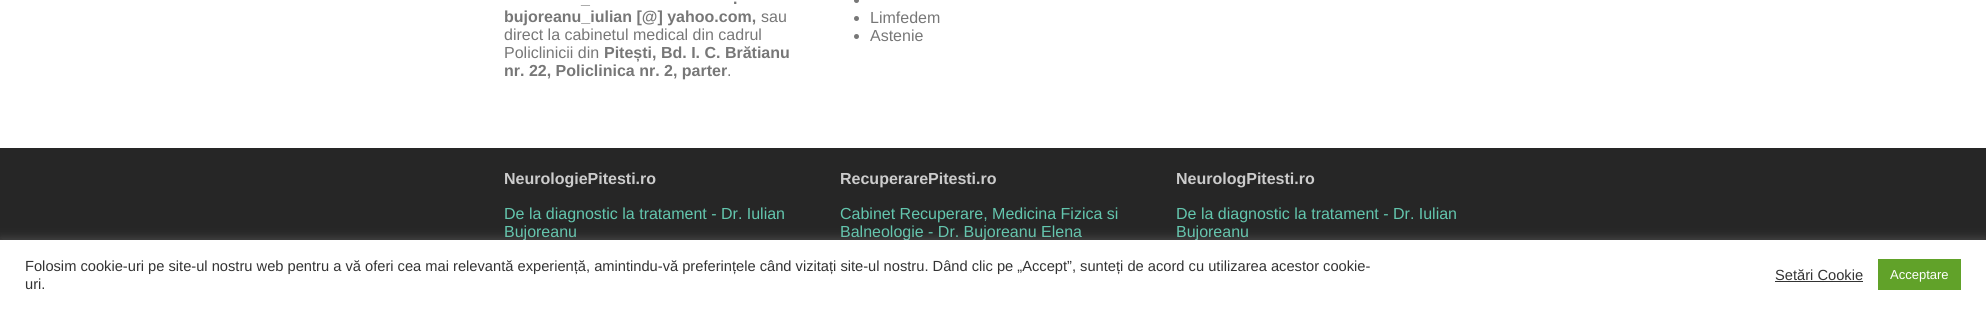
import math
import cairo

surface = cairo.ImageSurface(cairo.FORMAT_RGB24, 1986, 309)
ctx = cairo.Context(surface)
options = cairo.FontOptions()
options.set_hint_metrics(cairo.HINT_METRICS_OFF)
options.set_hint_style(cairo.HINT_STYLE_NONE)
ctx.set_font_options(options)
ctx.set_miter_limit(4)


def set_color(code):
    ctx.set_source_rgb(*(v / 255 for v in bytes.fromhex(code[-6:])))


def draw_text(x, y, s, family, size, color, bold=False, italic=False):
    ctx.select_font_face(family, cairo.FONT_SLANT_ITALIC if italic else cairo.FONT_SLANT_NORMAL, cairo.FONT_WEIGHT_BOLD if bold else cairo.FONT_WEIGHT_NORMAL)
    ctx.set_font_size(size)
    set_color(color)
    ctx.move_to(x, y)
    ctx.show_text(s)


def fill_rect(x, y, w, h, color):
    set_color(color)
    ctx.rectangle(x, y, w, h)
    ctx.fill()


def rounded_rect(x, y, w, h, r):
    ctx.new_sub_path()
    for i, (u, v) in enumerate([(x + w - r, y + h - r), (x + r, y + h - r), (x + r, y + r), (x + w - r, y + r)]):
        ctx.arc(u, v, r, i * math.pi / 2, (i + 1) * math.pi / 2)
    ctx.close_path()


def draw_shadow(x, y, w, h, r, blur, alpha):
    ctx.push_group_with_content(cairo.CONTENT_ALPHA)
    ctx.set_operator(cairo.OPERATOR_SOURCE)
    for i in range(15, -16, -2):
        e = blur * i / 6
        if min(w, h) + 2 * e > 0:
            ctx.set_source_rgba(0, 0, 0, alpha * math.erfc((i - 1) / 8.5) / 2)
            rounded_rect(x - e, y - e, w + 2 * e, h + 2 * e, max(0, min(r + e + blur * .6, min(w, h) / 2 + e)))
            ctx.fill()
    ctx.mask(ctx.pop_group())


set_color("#ffffff")
ctx.paint()
draw_text(733, 4, ".", "Liberation Sans", 16, "#777777", bold=True)
draw_text(581, 4, "_", "Liberation Sans", 16, "#777777", bold=True)
draw_text(504, 22, "bujoreanu_iulian [@] yahoo.com,", "Liberation Sans", 16, "#777777", bold=True)
draw_text(761, 22, "sau", "Liberation Sans", 16, "#777777")
draw_text(504, 40, "direct la cabinetul medical din cadrul", "Liberation Sans", 16, "#777777")
draw_text(504, 58, "Policlinicii din", "Liberation Sans", 16, "#777777")
draw_text(604, 58, "Pitești, Bd. I. C. Brătianu", "Liberation Sans", 16, "#777777", bold=True)
draw_text(504, 76, "nr. 22, Policlinica nr. 2, parter", "Liberation Sans", 16, "#777777", bold=True)
draw_text(727, 76, ".", "Liberation Sans", 16, "#777777")
ctx.new_path()
ctx.arc(856.5, 0.5, 2.5, 0, 2 * math.pi)
ctx.fill()
ctx.arc(856.5, 18.5, 2.5, 0, 2 * math.pi)
ctx.fill()
draw_text(870, 23, "Limfedem", "Liberation Sans", 16, "#777777")
ctx.new_path()
ctx.arc(856.5, 36.5, 2.5, 0, 2 * math.pi)
ctx.fill()
draw_text(870, 41, "Astenie", "Liberation Sans", 16, "#777777")
fill_rect(0, 148, 1986, 92, "#262626")
draw_text(504, 184, "NeurologiePitesti.ro", "Liberation Sans", 16, "#cccccc", bold=True)
draw_text(504, 219, "De la diagnostic la tratament - Dr. Iulian", "Liberation Sans", 16, "#63c6ae")
draw_text(504, 237, "Bujoreanu", "Liberation Sans", 16, "#63c6ae")
draw_text(840, 184, "RecuperarePitesti.ro", "Liberation Sans", 16, "#cccccc", bold=True)
draw_text(840, 219, "Cabinet Recuperare, Medicina Fizica si", "Liberation Sans", 16, "#63c6ae")
draw_text(840, 237, "Balneologie - Dr. Bujoreanu Elena", "Liberation Sans", 16, "#63c6ae")
draw_text(1176, 184, "NeurologPitesti.ro", "Liberation Sans", 16, "#cccccc", bold=True)
draw_text(1176, 219, "De la diagnostic la tratament - Dr. Iulian", "Liberation Sans", 16, "#63c6ae")
draw_text(1176, 237, "Bujoreanu", "Liberation Sans", 16, "#63c6ae")
set_color("#acabab")
draw_shadow(0, 239, 1986, 69, 0, 5, 0.3)
fill_rect(0, 240, 1986, 69, "#ffffff")
draw_text(25, 271, "Folosim cookie-uri pe site-ul nostru web pentru a vă oferi cea mai relevantă experiență, amintindu-vă preferințele când vizitați site-ul nostru. Dând clic pe „Accept”, sunteți de acord cu utilizarea acestor cookie-", "Liberation Sans", 14.67, "#333333")
draw_text(25, 289, "uri.", "Liberation Sans", 14.67, "#333333")
draw_text(1775, 280, "Setări Cookie", "Liberation Sans", 14.67, "#333333")
fill_rect(1775, 281, 88, 1, "#333333")
fill_rect(1878, 259, 83, 31, "#61a229")
draw_text(1890, 279, "Acceptare", "Liberation Sans", 13, "#ffffff")
surface.write_to_png("output.png")
